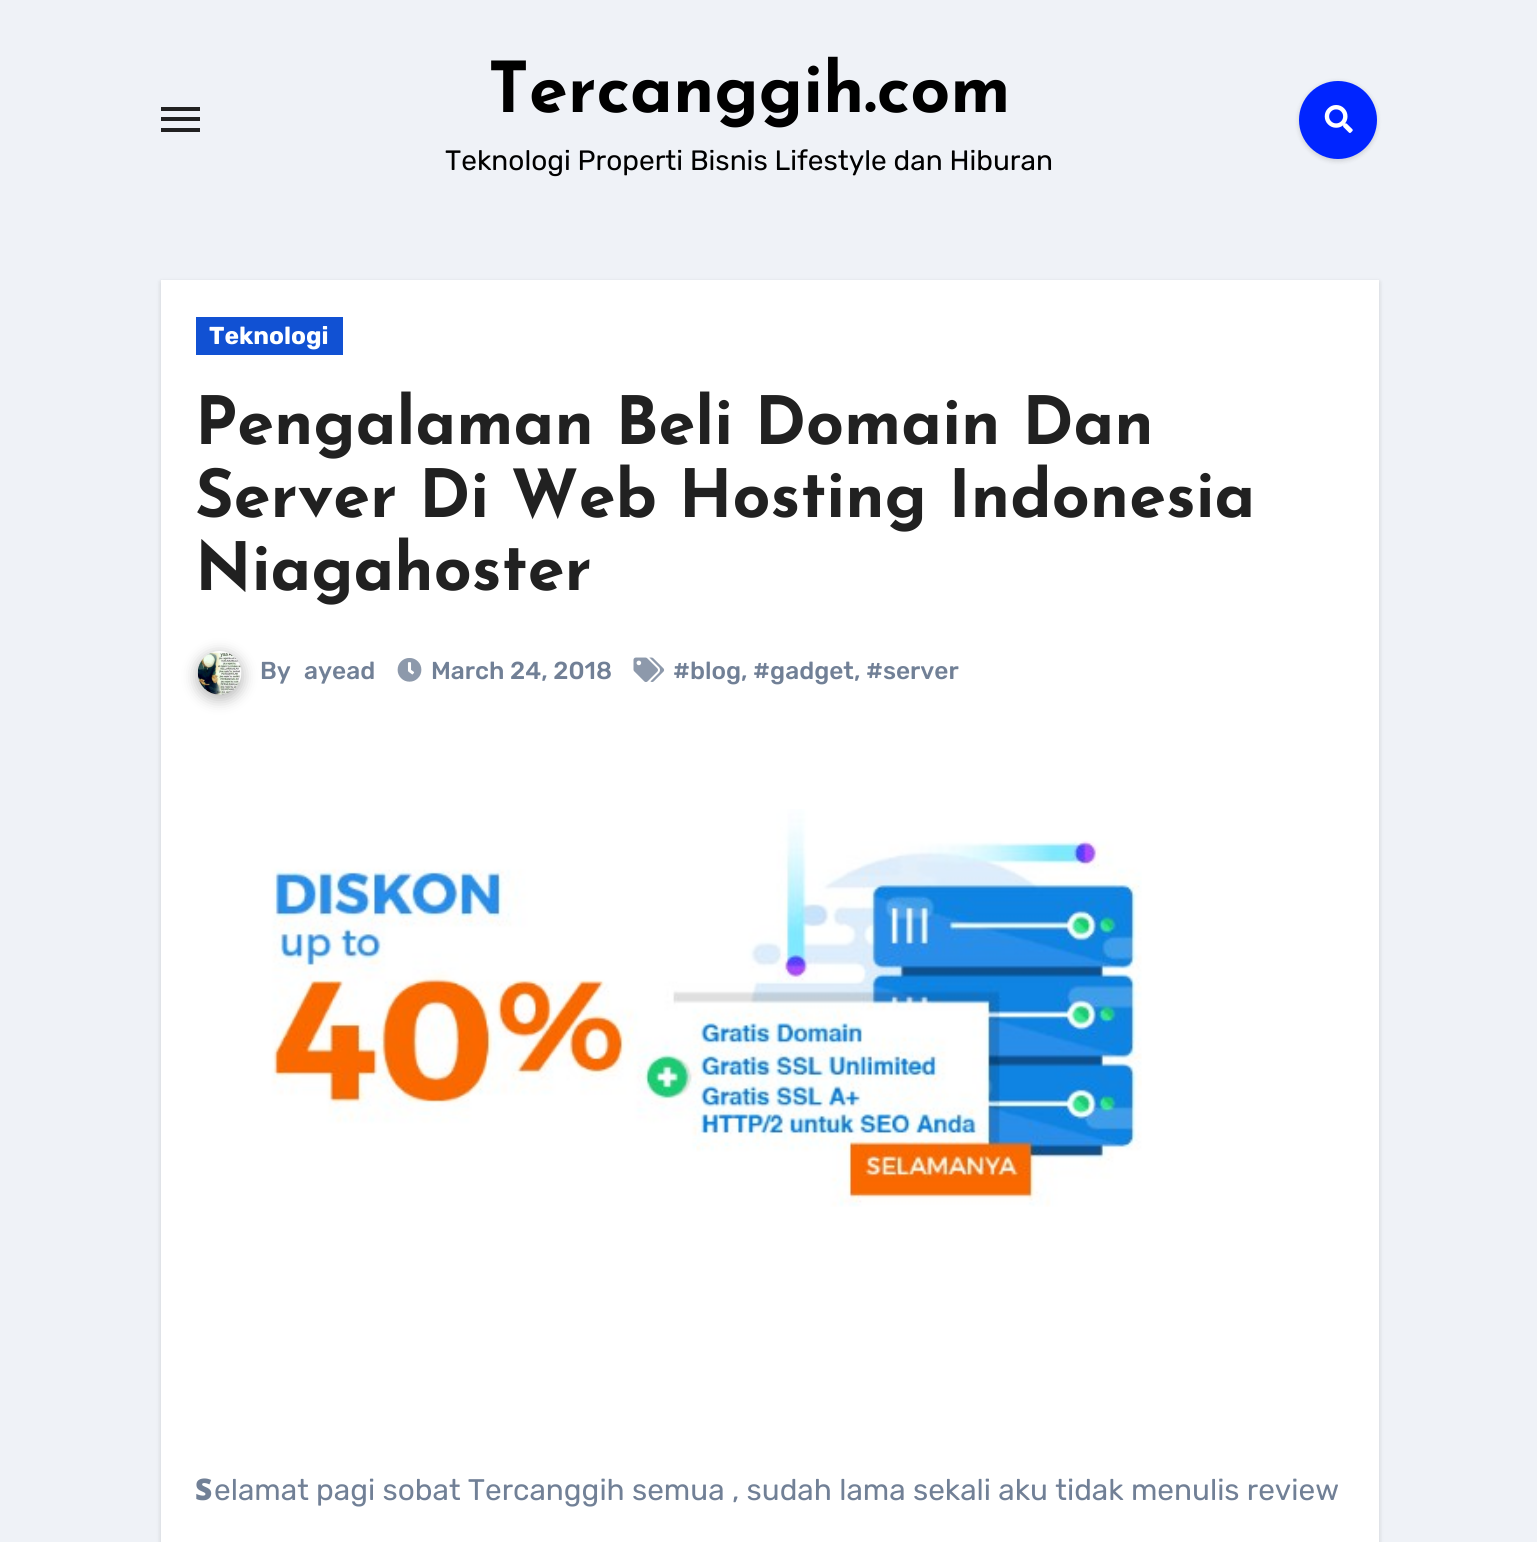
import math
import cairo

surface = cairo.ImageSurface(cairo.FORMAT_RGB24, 1537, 1542)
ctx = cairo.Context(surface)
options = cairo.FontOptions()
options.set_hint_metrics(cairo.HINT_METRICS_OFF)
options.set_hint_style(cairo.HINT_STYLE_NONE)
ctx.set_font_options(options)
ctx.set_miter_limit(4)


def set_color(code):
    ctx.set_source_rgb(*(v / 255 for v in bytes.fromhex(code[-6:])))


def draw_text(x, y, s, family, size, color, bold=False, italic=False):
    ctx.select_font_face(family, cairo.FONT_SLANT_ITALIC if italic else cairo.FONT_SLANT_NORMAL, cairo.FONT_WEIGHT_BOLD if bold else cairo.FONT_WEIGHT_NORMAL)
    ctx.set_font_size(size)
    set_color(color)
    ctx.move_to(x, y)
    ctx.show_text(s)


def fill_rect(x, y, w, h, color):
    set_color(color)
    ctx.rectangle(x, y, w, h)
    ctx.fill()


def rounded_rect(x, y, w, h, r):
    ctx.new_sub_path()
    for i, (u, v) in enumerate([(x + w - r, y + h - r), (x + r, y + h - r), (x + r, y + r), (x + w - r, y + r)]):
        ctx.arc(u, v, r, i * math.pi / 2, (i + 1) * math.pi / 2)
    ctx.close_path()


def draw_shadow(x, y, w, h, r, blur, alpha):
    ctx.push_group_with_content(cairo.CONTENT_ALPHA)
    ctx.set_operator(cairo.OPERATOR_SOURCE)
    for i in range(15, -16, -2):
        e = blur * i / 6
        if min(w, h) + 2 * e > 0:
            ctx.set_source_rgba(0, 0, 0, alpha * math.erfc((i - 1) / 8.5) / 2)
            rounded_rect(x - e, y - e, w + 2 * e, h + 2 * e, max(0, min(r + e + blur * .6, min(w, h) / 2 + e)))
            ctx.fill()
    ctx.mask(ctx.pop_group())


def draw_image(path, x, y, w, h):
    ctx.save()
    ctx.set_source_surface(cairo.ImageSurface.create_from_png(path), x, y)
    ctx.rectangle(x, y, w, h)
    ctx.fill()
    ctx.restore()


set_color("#eff2f7")
ctx.paint()
fill_rect(161, 107, 39, 4, "#212121")
fill_rect(161, 117, 39, 4, "#212121")
fill_rect(161, 128, 39, 4, "#212121")
draw_text(488, 112, "Tercanggih.com", "Josefin Sans", 70, "#000000", bold=True)
draw_text(445, 170, "Teknologi Properti Bisnis Lifestyle dan Hiburan", "Rubik Light", 28, "#000000")
set_color("#000000")
draw_shadow(1299, 82, 78, 79, 39, 2.5, 0.15)
set_color("#0025ff")
ctx.arc(1338, 120, 39, 0, 2 * math.pi)
ctx.fill()
draw_image("assets/img1.png", 1324, 105, 29, 28)
set_color("#000000")
draw_shadow(161, 282, 1218, 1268, 0, 2.5, 0.15)
fill_rect(161, 280, 1218, 1262, "#ffffff")
fill_rect(196, 317, 147, 38, "#1151d3")
draw_text(209, 344, "Teknologi", "Rubik", 24.5, "#ffffff", bold=True)
draw_text(195, 444, "Pengalaman Beli Domain Dan", "Josefin Sans", 66.5, "#212121", bold=True)
draw_text(195, 517, "Server Di Web Hosting Indonesia", "Josefin Sans", 66.5, "#212121", bold=True)
draw_text(195, 590, "Niagahoster", "Josefin Sans", 66.5, "#212121", bold=True)
set_color("#212121")
draw_shadow(196, 653, 47, 47, 23.5, 7, 0.3)
draw_image("assets/img2.png", 197, 651, 45, 44)
draw_text(260, 679, "By", "Rubik Medium", 24.5, "#718096")
draw_text(304, 679, "ayead", "Rubik Medium", 24.5, "#718096")
draw_image("assets/img3.png", 397, 658, 25, 24)
draw_text(431, 679, "March 24, 2018", "Rubik Medium", 24.5, "#718096")
draw_image("assets/img4.png", 633, 657, 32, 25)
draw_text(673, 679, "#blog, #gadget, #server", "Rubik Medium", 24.5, "#718096")
draw_image("assets/img5.png", 271, 809, 871, 398)
draw_text(195, 1500, "S", "Noto Sans Black", 29.75, "#718096")
draw_text(214, 1500, "elamat pagi sobat Tercanggih semua , sudah lama sekali aku tidak menulis review", "Rubik Light", 29.75, "#718096")
surface.write_to_png("output.png")
